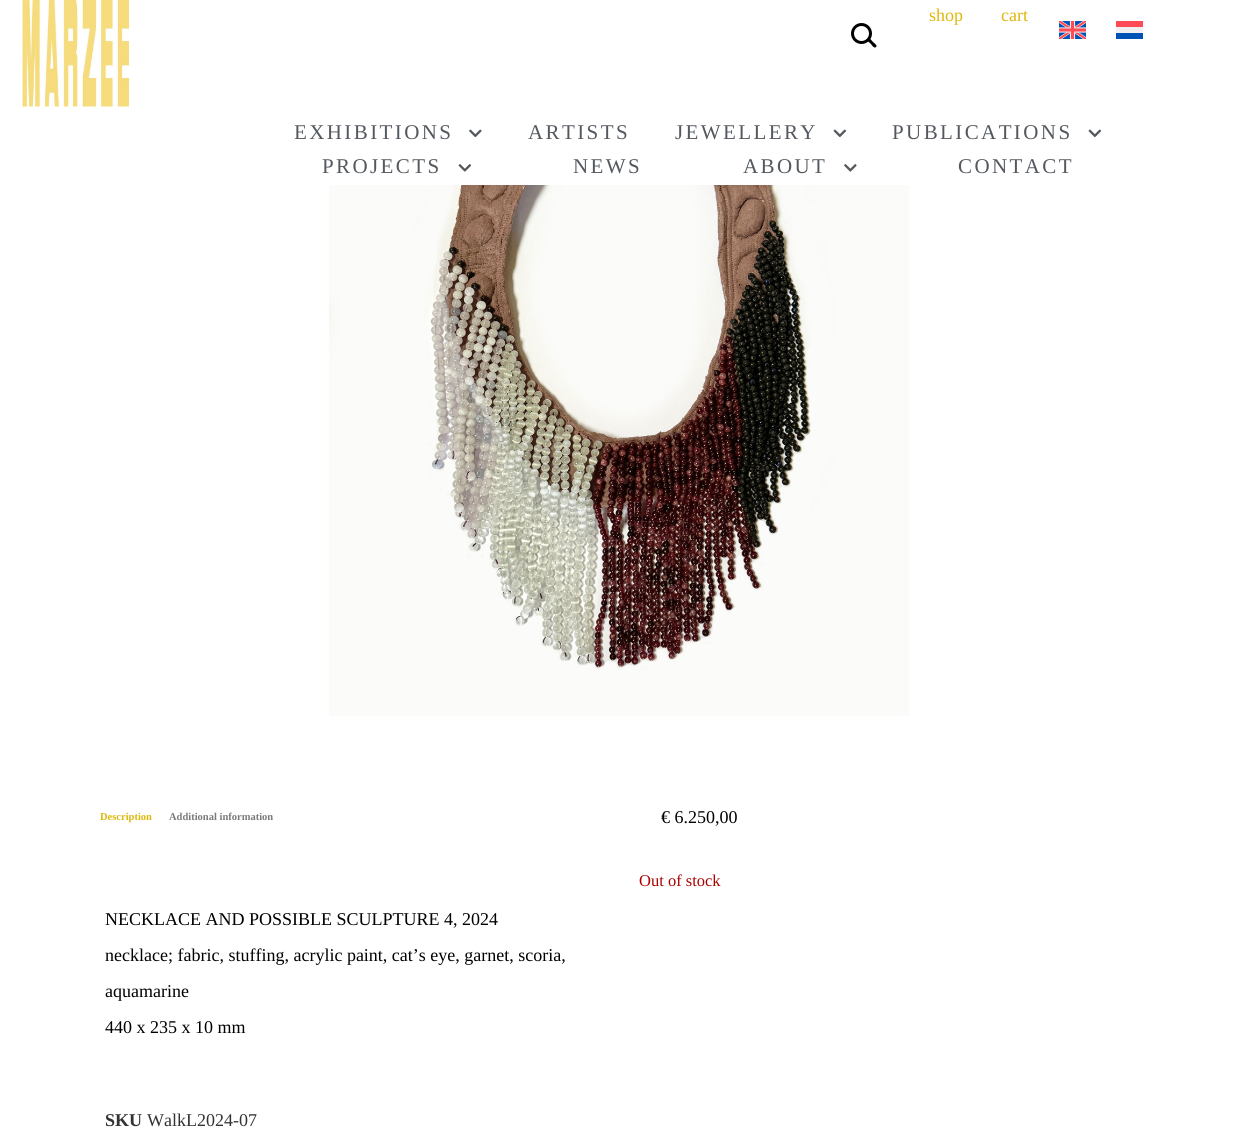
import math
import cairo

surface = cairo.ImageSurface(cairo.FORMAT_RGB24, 1237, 1128)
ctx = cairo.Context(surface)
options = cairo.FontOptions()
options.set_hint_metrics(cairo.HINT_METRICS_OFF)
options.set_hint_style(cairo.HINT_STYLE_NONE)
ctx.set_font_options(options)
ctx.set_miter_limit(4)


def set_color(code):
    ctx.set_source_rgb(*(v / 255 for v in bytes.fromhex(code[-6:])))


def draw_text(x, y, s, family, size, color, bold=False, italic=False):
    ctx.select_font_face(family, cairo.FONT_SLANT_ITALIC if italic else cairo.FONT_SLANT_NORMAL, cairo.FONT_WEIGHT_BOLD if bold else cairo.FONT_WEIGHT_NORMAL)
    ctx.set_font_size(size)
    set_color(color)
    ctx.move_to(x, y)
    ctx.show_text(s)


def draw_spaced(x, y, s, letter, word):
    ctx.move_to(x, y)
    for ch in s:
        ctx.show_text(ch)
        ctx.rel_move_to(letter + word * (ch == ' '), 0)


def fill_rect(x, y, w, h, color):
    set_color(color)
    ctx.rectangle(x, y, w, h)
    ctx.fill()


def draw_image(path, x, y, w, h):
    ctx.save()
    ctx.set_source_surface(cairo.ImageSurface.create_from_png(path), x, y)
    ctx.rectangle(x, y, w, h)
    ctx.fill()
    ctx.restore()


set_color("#ffffff")
ctx.paint()
draw_image("assets/img1.png", 22, 0, 107, 107)
draw_text(929, 21, "shop", "Liberation Serif", 18, "#ddb70b")
draw_text(1001, 21, "cart", "Liberation Serif", 18, "#ddb70b")
draw_image("assets/img2.png", 1059, 21, 27, 18)
fill_rect(1116, 21, 27, 6, "#ff4b55")
fill_rect(1116, 27, 27, 6, "#f0f0f0")
fill_rect(1116, 33, 27, 6, "#0052b4")
ctx.set_font_size(21)
set_color("#54595f")
draw_spaced(294, 139, "EXHIBITIONS", 2.4, 0)
draw_image("assets/img3.png", 469, 129, 13, 9)
draw_spaced(528, 139, "ARTISTS", 2.4, 0)
draw_spaced(675, 139, "JEWELLERY", 2.4, 0)
draw_image("assets/img4.png", 833, 129, 14, 9)
draw_spaced(892, 139, "PUBLICATIONS", 2.4, 0)
draw_image("assets/img4.png", 1088, 129, 14, 9)
draw_spaced(322, 173, "PROJECTS", 2.4, 0)
draw_image("assets/img5.png", 458, 164, 13, 8)
draw_spaced(573, 173, "NEWS", 2.4, 0)
draw_spaced(743, 173, "ABOUT", 2.4, 0)
draw_image("assets/img6.png", 844, 164, 13, 8)
draw_spaced(958, 173, "CONTACT", 2.4, 0)
ctx.new_path()
ctx.arc(861.5, 33.5, 9, 0, 2 * math.pi)
set_color("#000000")
ctx.set_line_width(3)
ctx.stroke()
ctx.new_path()
ctx.move_to(867.5, 38.5)
ctx.curve_to(869.5, 37, 872, 41, 873, 42)
ctx.curve_to(874, 43, 878, 45.5, 876, 47)
ctx.curve_to(874.5, 49, 871.5, 45, 871, 44)
ctx.curve_to(870, 43, 866, 40.5, 867.5, 38.5)
ctx.close_path()
ctx.fill()
draw_image("assets/img7.png", 329, 185, 580, 531)
draw_text(100, 820, "Description", "Liberation Serif", 10.5, "#ddb70b", bold=True)
draw_text(169, 820, "Additional information", "Liberation Serif", 10.5, "#7a7a7a", bold=True)
draw_text(105, 925, "NECKLACE AND POSSIBLE SCULPTURE 4, 2024", "Liberation Serif", 18, "#000000")
draw_text(105, 961, "necklace; fabric, stuffing, acrylic paint, cat’s eye, garnet, scoria,", "Liberation Serif", 18, "#000000")
draw_text(105, 997, "aquamarine", "Liberation Serif", 18, "#000000")
draw_text(105, 1033, "440 x 235 x 10 mm", "Liberation Serif", 18, "#000000")
draw_text(105, 1126, "SKU", "Liberation Serif", 18, "#333333", bold=True)
draw_text(147, 1126, "WalkL2024-07", "Liberation Serif", 18, "#333333")
draw_text(661, 823, "€ 6.250,00", "Liberation Serif", 18, "#000000")
draw_text(639, 886, "Out of stock", "Liberation Serif", 16.5, "#aa0000")
surface.write_to_png("output.png")
